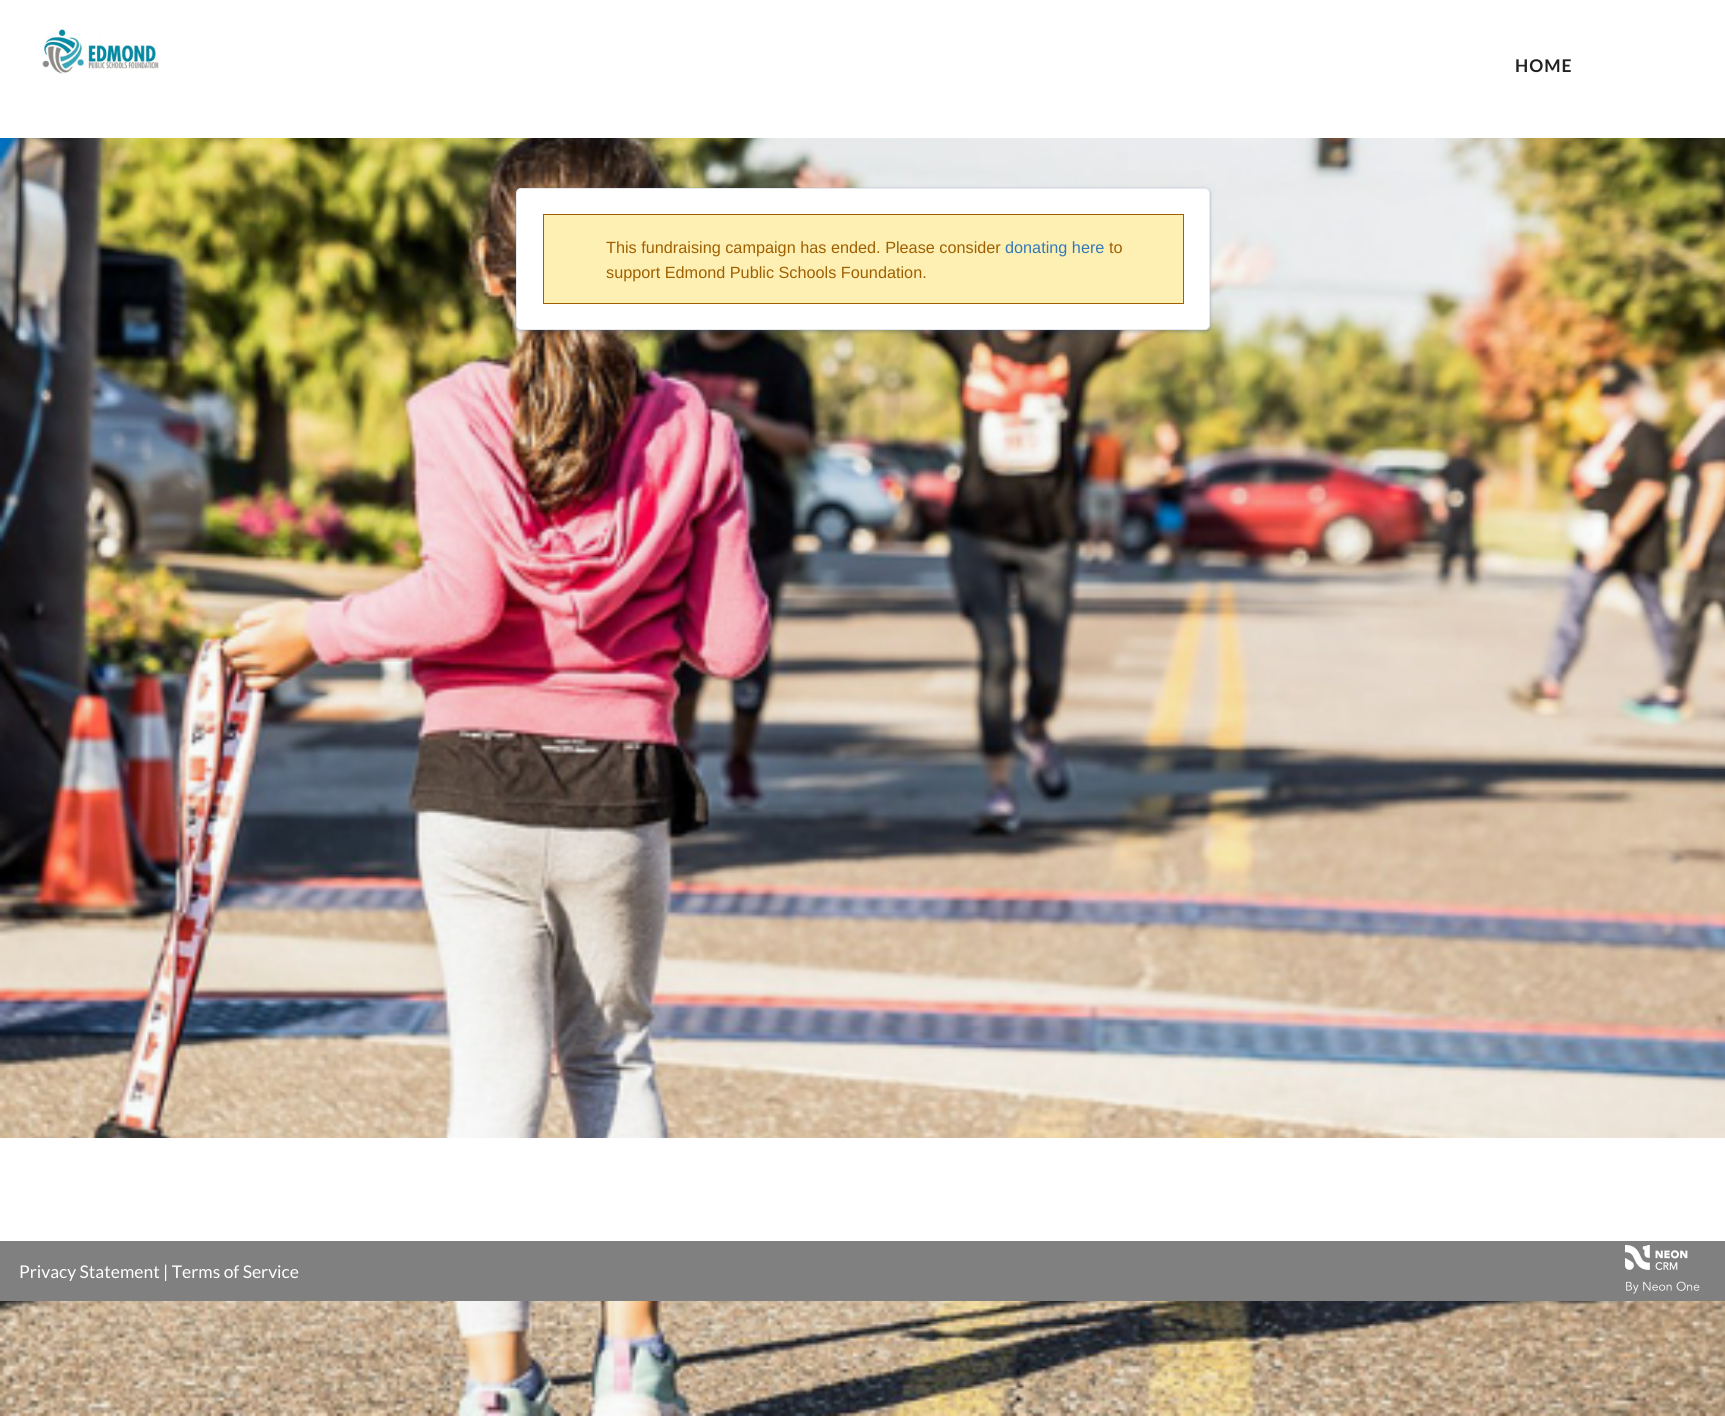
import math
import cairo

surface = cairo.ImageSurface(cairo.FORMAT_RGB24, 1725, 1416)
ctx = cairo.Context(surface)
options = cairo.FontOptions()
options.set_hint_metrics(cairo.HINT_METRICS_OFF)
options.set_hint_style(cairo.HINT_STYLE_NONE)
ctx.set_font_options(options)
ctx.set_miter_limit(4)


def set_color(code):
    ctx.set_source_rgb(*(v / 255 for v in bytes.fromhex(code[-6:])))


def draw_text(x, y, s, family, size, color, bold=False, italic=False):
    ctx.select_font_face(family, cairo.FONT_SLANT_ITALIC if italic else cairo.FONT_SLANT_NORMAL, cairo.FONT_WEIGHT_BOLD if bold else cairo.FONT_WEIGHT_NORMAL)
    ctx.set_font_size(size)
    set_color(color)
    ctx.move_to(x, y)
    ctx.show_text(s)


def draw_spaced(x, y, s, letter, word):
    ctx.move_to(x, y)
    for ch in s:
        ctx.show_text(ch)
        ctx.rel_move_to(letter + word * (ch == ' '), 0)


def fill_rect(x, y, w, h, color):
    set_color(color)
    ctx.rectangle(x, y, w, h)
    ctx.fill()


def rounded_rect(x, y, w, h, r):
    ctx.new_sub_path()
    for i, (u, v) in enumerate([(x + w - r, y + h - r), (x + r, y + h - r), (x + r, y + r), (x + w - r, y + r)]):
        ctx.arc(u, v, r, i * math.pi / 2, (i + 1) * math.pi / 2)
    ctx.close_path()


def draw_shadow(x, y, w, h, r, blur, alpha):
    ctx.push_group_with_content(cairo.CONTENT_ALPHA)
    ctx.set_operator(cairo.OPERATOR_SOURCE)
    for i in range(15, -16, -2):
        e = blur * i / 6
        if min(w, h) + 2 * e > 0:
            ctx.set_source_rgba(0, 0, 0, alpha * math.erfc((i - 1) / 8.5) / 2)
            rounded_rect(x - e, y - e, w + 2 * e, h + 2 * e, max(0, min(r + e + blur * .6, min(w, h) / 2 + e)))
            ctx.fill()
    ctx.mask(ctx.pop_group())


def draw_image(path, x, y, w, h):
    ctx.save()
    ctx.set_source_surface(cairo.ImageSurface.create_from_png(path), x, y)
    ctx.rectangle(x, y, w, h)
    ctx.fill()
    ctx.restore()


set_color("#ffffff")
ctx.paint()
draw_image("assets/img1.png", 42, 27, 117, 47)
ctx.select_font_face("Lato", cairo.FONT_SLANT_NORMAL, cairo.FONT_WEIGHT_BOLD)
ctx.set_font_size(17.5)
set_color("#222222")
draw_spaced(1515, 72, "HOME", 1, 0)
draw_image("assets/img4.png", 0, 138, 1725, 1278)
set_color("#2f4975")
draw_shadow(516, 189, 694, 142, 5, 2, 0.2)
draw_shadow(516, 190, 694, 143, 5, 1, 0.12)
draw_shadow(516, 188, 694, 142, 5, 1, 0.14)
set_color("#ffffff")
rounded_rect(516.5, 188.5, 693, 141, 4.5)
ctx.fill_preserve()
set_color("#e6e9ee")
ctx.set_line_width(1)
ctx.stroke()
set_color("#feefb3")
ctx.rectangle(543.5, 214.5, 640, 89)
ctx.fill_preserve()
set_color("#9f6000")
ctx.stroke()
draw_text(606, 253, "This fundraising campaign has ended. Please consider", "Liberation Sans", 16.25, "#9f6000")
draw_text(1005, 253, "donating here", "Liberation Sans", 16.25, "#337ab7")
draw_text(1109, 253, "to", "Liberation Sans", 16.25, "#9f6000")
draw_text(606, 278, "support Edmond Public Schools Foundation.", "Liberation Sans", 16.25, "#9f6000")
fill_rect(0, 1138, 1725, 103, "#ffffff")
fill_rect(0, 1241, 1725, 60, "#808080")
draw_text(19, 1278, "Privacy Statement | Terms of Service", "Lato", 17.5, "#ffffff")
draw_image("assets/img2.png", 1625, 1245, 63, 25)
draw_image("assets/img3.png", 1626, 1281, 74, 13)
surface.write_to_png("output.png")
